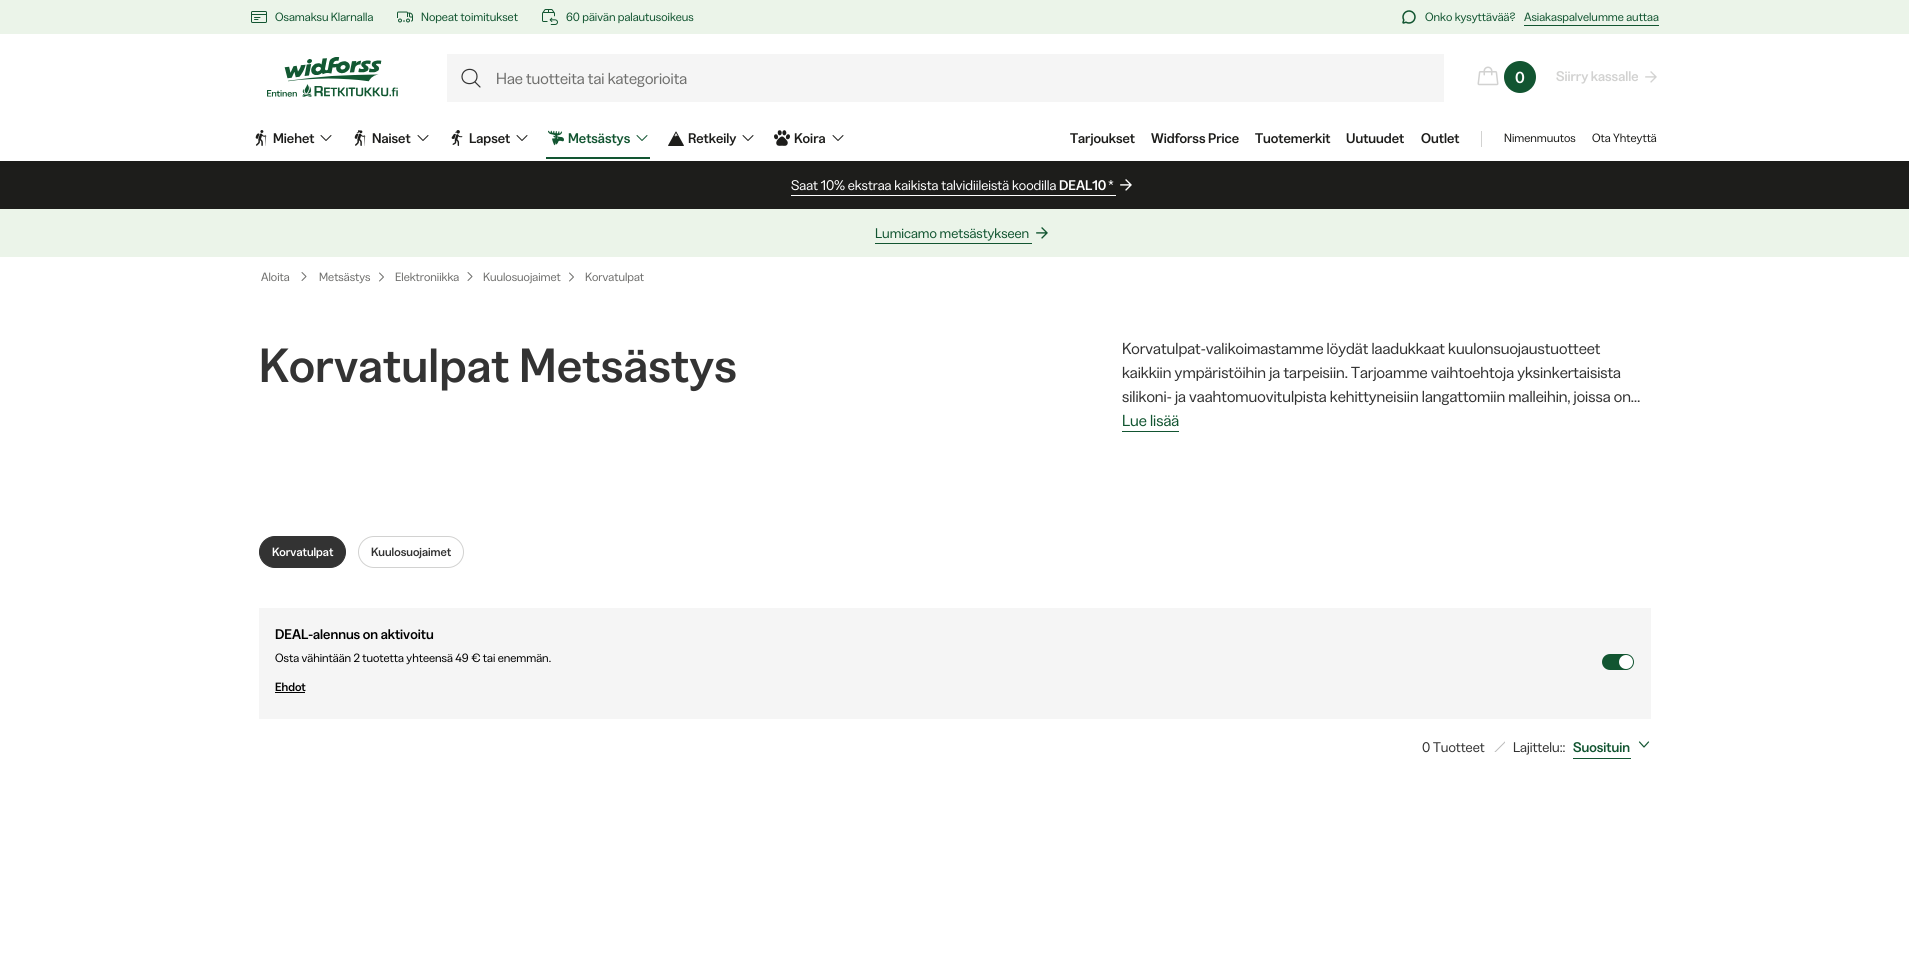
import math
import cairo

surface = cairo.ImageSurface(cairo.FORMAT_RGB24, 1909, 971)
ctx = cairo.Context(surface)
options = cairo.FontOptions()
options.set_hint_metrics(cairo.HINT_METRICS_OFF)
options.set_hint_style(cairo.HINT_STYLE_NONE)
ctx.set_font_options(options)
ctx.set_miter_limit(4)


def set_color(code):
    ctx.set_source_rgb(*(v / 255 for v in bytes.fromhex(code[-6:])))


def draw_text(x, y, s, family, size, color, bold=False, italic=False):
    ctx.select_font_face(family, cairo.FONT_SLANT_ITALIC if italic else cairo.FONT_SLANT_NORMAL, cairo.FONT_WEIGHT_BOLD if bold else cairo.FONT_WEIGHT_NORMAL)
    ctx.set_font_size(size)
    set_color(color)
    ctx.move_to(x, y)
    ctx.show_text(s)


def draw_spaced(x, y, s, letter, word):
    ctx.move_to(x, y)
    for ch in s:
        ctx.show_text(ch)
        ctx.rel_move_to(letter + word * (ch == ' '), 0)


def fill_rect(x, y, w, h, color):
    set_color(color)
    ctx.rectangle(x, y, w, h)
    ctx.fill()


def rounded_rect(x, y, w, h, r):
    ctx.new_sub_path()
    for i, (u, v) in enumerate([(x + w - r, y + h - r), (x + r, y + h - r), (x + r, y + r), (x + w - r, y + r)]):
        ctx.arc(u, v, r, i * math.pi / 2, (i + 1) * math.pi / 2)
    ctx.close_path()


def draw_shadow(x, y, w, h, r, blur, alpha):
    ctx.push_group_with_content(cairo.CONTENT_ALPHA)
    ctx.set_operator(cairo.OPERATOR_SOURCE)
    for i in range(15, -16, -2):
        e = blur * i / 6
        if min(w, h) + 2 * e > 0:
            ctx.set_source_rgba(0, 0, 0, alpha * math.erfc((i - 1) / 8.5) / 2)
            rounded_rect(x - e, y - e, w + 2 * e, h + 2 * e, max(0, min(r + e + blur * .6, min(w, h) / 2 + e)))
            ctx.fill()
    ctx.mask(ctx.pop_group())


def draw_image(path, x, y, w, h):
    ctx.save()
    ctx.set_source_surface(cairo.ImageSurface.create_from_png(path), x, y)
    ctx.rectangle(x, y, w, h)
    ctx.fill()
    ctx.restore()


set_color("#ffffff")
ctx.paint()
fill_rect(0, 161, 1909, 48, "#1d1d1b")
ctx.save()
ctx.rectangle(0, 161, 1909, 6)
ctx.clip()
set_color("#000000")
draw_shadow(-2, 32, 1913, 131, 0, 5, 0.1)
ctx.restore()
fill_rect(0, 0, 1909, 34, "#ebf4e9")
draw_image("assets/img1.png", 251, 11, 16, 12)
draw_text(275, 21, "Osamaksu Klarnalla", "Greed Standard", 12, "#125531")
draw_image("assets/img2.png", 397, 11, 16, 12)
draw_text(421, 21, "Nopeat toimitukset", "Greed Standard", 12, "#125531")
draw_image("assets/img3.png", 542, 9, 16, 16)
draw_text(566, 21, "60 päivän palautusoikeus", "Greed Standard", 12, "#125531")
draw_image("assets/img4.png", 1402, 10, 14, 14)
draw_text(1425, 21, "Onko kysyttävää?", "Greed Standard", 12, "#125531")
fill_rect(1524, 25, 135, 1, "#125531")
draw_text(1524, 21, "Asiakaspalvelumme auttaa", "Greed Standard", 12, "#125531")
draw_image("assets/img5.png", 267, 57, 131, 40)
fill_rect(447, 54, 997, 48, "#f5f5f5")
ctx.new_path()
ctx.move_to(480, 87)
ctx.line_to(475, 82)
ctx.move_to(477, 76.5)
ctx.curve_to(477, 86, 462, 86, 462, 76.5)
ctx.curve_to(462.5, 67, 477, 67, 477, 76.5)
set_color("#333333")
ctx.set_line_width(1.2)
ctx.set_line_cap(cairo.LINE_CAP_ROUND)
ctx.set_line_join(cairo.LINE_JOIN_ROUND)
ctx.stroke()
draw_text(496, 84, "Hae tuotteita tai kategorioita", "Greed Standard", 16, "#6f6f6d")
draw_image("assets/img6.png", 1477, 66, 22, 20)
set_color("#125531")
ctx.arc(1520, 77, 16, 0, 2 * math.pi)
ctx.fill()
draw_text(1515, 83, "0", "Greed Standard Medium", 16, "#ffffff")
draw_text(1556, 81, "Siirry kassalle", "Greed Standard Medium", 14, "#d2d2d1")
draw_image("assets/img7.png", 1645, 71, 12, 12)
draw_image("assets/img8.png", 255, 130, 12, 16)
draw_text(273, 143, "Miehet", "Greed Standard Medium", 14, "#1d1d1b")
draw_image("assets/img9.png", 320, 135, 12, 6)
draw_image("assets/img10.png", 354, 130, 12, 16)
draw_text(372, 143, "Naiset", "Greed Standard Medium", 14, "#1d1d1b")
draw_image("assets/img9.png", 417, 135, 12, 6)
draw_image("assets/img11.png", 451, 130, 12, 16)
draw_text(469, 143, "Lapset", "Greed Standard Medium", 14, "#1d1d1b")
draw_image("assets/img9.png", 516, 135, 12, 6)
fill_rect(546, 157, 104, 2, "#125531")
draw_image("assets/img12.png", 548, 130, 16, 16)
draw_text(568, 143, "Metsästys", "Greed Standard Medium", 14, "#125531")
draw_image("assets/img13.png", 636, 135, 12, 6)
draw_image("assets/img14.png", 668, 131, 16, 15)
draw_text(688, 143, "Retkeily", "Greed Standard Medium", 14, "#1d1d1b")
draw_image("assets/img9.png", 742, 135, 12, 6)
draw_image("assets/img15.png", 774, 130, 16, 16)
draw_text(794, 143, "Koira", "Greed Standard Medium", 14, "#1d1d1b")
draw_image("assets/img9.png", 832, 135, 12, 6)
draw_text(1070, 143, "Tarjoukset", "Greed Standard Medium", 14, "#1d1d1b")
draw_text(1151, 143, "Widforss Price", "Greed Standard Medium", 14, "#1d1d1b")
draw_text(1255, 143, "Tuotemerkit", "Greed Standard Medium", 14, "#1d1d1b")
draw_text(1346, 143, "Uutuudet", "Greed Standard Medium", 14, "#1d1d1b")
draw_text(1421, 143, "Outlet", "Greed Standard Medium", 14, "#1d1d1b")
fill_rect(1481, 131, 1, 16, "#d2d2d1")
draw_text(1504, 142, "Nimenmuutos", "Greed Standard", 12, "#1d1d1b")
draw_text(1592, 142, "Ota Yhteyttä", "Greed Standard", 12, "#1d1d1b")
fill_rect(791, 195, 325, 1, "#ffffff")
draw_text(791, 190, "Saat 10% ekstraa kaikista talvidiileistä koodilla", "Greed Standard", 14, "#ffffff")
draw_text(1059, 190, "DEAL10", "Greed Standard Medium", 14, "#ffffff")
draw_text(1108, 190, "*", "Greed Standard", 14, "#ffffff")
draw_image("assets/img16.png", 1120, 179, 12, 12)
fill_rect(0, 209, 1909, 48, "#ebf4e9")
fill_rect(875, 243, 157, 1, "#125531")
draw_text(875, 238, "Lumicamo metsästykseen", "Greed Standard", 14, "#125531")
draw_image("assets/img17.png", 1036, 227, 12, 12)
draw_text(261, 281, "Aloita", "Greed Standard", 12, "#6f6f6d")
ctx.new_path()
ctx.move_to(302, 280.5)
ctx.line_to(306, 276.5)
ctx.line_to(302, 272.5)
ctx.set_line_width(1)
ctx.stroke()
draw_text(319, 281, "Metsästys", "Greed Standard", 12, "#6f6f6d")
ctx.new_path()
ctx.move_to(379.5, 281)
ctx.line_to(383.5, 277)
ctx.line_to(379.5, 273)
ctx.stroke()
draw_text(395, 281, "Elektroniikka", "Greed Standard", 12, "#6f6f6d")
ctx.new_path()
ctx.move_to(468, 280.5)
ctx.line_to(472, 276.5)
ctx.line_to(468, 272.5)
ctx.stroke()
draw_text(483, 281, "Kuulosuojaimet", "Greed Standard", 12, "#6f6f6d")
ctx.new_path()
ctx.move_to(569.5, 281)
ctx.line_to(573.5, 277)
ctx.line_to(569.5, 273)
ctx.stroke()
draw_text(585, 281, "Korvatulpat", "Greed Standard", 12, "#6f6f6d")
ctx.select_font_face("Greed Standard Medium")
ctx.set_font_size(48)
set_color("#333333")
draw_spaced(259, 382, "Korvatulpat Metsästys", 0.5, 0)
draw_text(1122, 354, "Korvatulpat-valikoimastamme löydät laadukkaat kuulonsuojaustuotteet", "Greed Standard", 16, "#333333")
draw_text(1122, 378, "kaikkiin ympäristöihin ja tarpeisiin. Tarjoamme vaihtoehtoja yksinkertaisista", "Greed Standard", 16, "#333333")
draw_text(1122, 402, "silikoni- ja vaahtomuovitulpista kehittyneisiin langattomiin malleihin, joissa on…", "Greed Standard", 16, "#333333")
fill_rect(1122, 431, 57, 1, "#125531")
draw_text(1122, 426, "Lue lisää", "Greed Standard", 16, "#125531")
set_color("#333333")
rounded_rect(259.5, 536.5, 86, 31, 15.5)
ctx.fill_preserve()
ctx.set_line_cap(cairo.LINE_CAP_BUTT)
ctx.set_line_join(cairo.LINE_JOIN_MITER)
ctx.stroke()
draw_text(272, 556, "Korvatulpat", "Greed Standard Medium", 12, "#ffffff")
rounded_rect(358.5, 536.5, 105, 31, 15.5)
set_color("#d2d2d1")
ctx.stroke()
draw_text(371, 556, "Kuulosuojaimet", "Greed Standard Medium", 12, "#333333")
fill_rect(259, 608, 1392, 111, "#f5f5f5")
draw_text(275, 639, "DEAL-alennus on aktivoitu", "Greed Standard Medium", 14, "#000000")
draw_text(275, 662, "Osta vähintään 2 tuotetta yhteensä 49 € tai enemmän.", "Greed Standard", 12, "#000000")
draw_text(275, 691, "Ehdot", "Greed Standard Medium", 12, "#000000")
fill_rect(275, 692, 30, 1, "#000000")
set_color("#125531")
rounded_rect(1602, 654, 32, 16, 8)
ctx.fill()
set_color("#ffffff")
ctx.arc(1626, 662, 7, 0, 2 * math.pi)
ctx.fill()
draw_text(1422, 752, "0 Tuotteet", "Greed Standard", 14, "#333333")
ctx.save()
ctx.rectangle(1493, 740, 12, 12)
ctx.clip()
ctx.new_path()
ctx.move_to(1506, 741)
ctx.line_to(1494, 753)
set_color("#bbbbbb")
ctx.stroke()
ctx.restore()
draw_text(1513, 752, "Lajittelu::", "Greed Standard", 14, "#333333")
fill_rect(1573, 758, 58, 1, "#125531")
draw_text(1573, 752, "Suosituin", "Greed Standard Medium", 14, "#125531")
ctx.new_path()
ctx.move_to(1639.5, 742)
ctx.line_to(1644, 747)
ctx.line_to(1648.5, 742)
ctx.set_line_width(1.2)
ctx.set_line_cap(cairo.LINE_CAP_ROUND)
ctx.set_line_join(cairo.LINE_JOIN_ROUND)
ctx.stroke()
surface.write_to_png("output.png")
